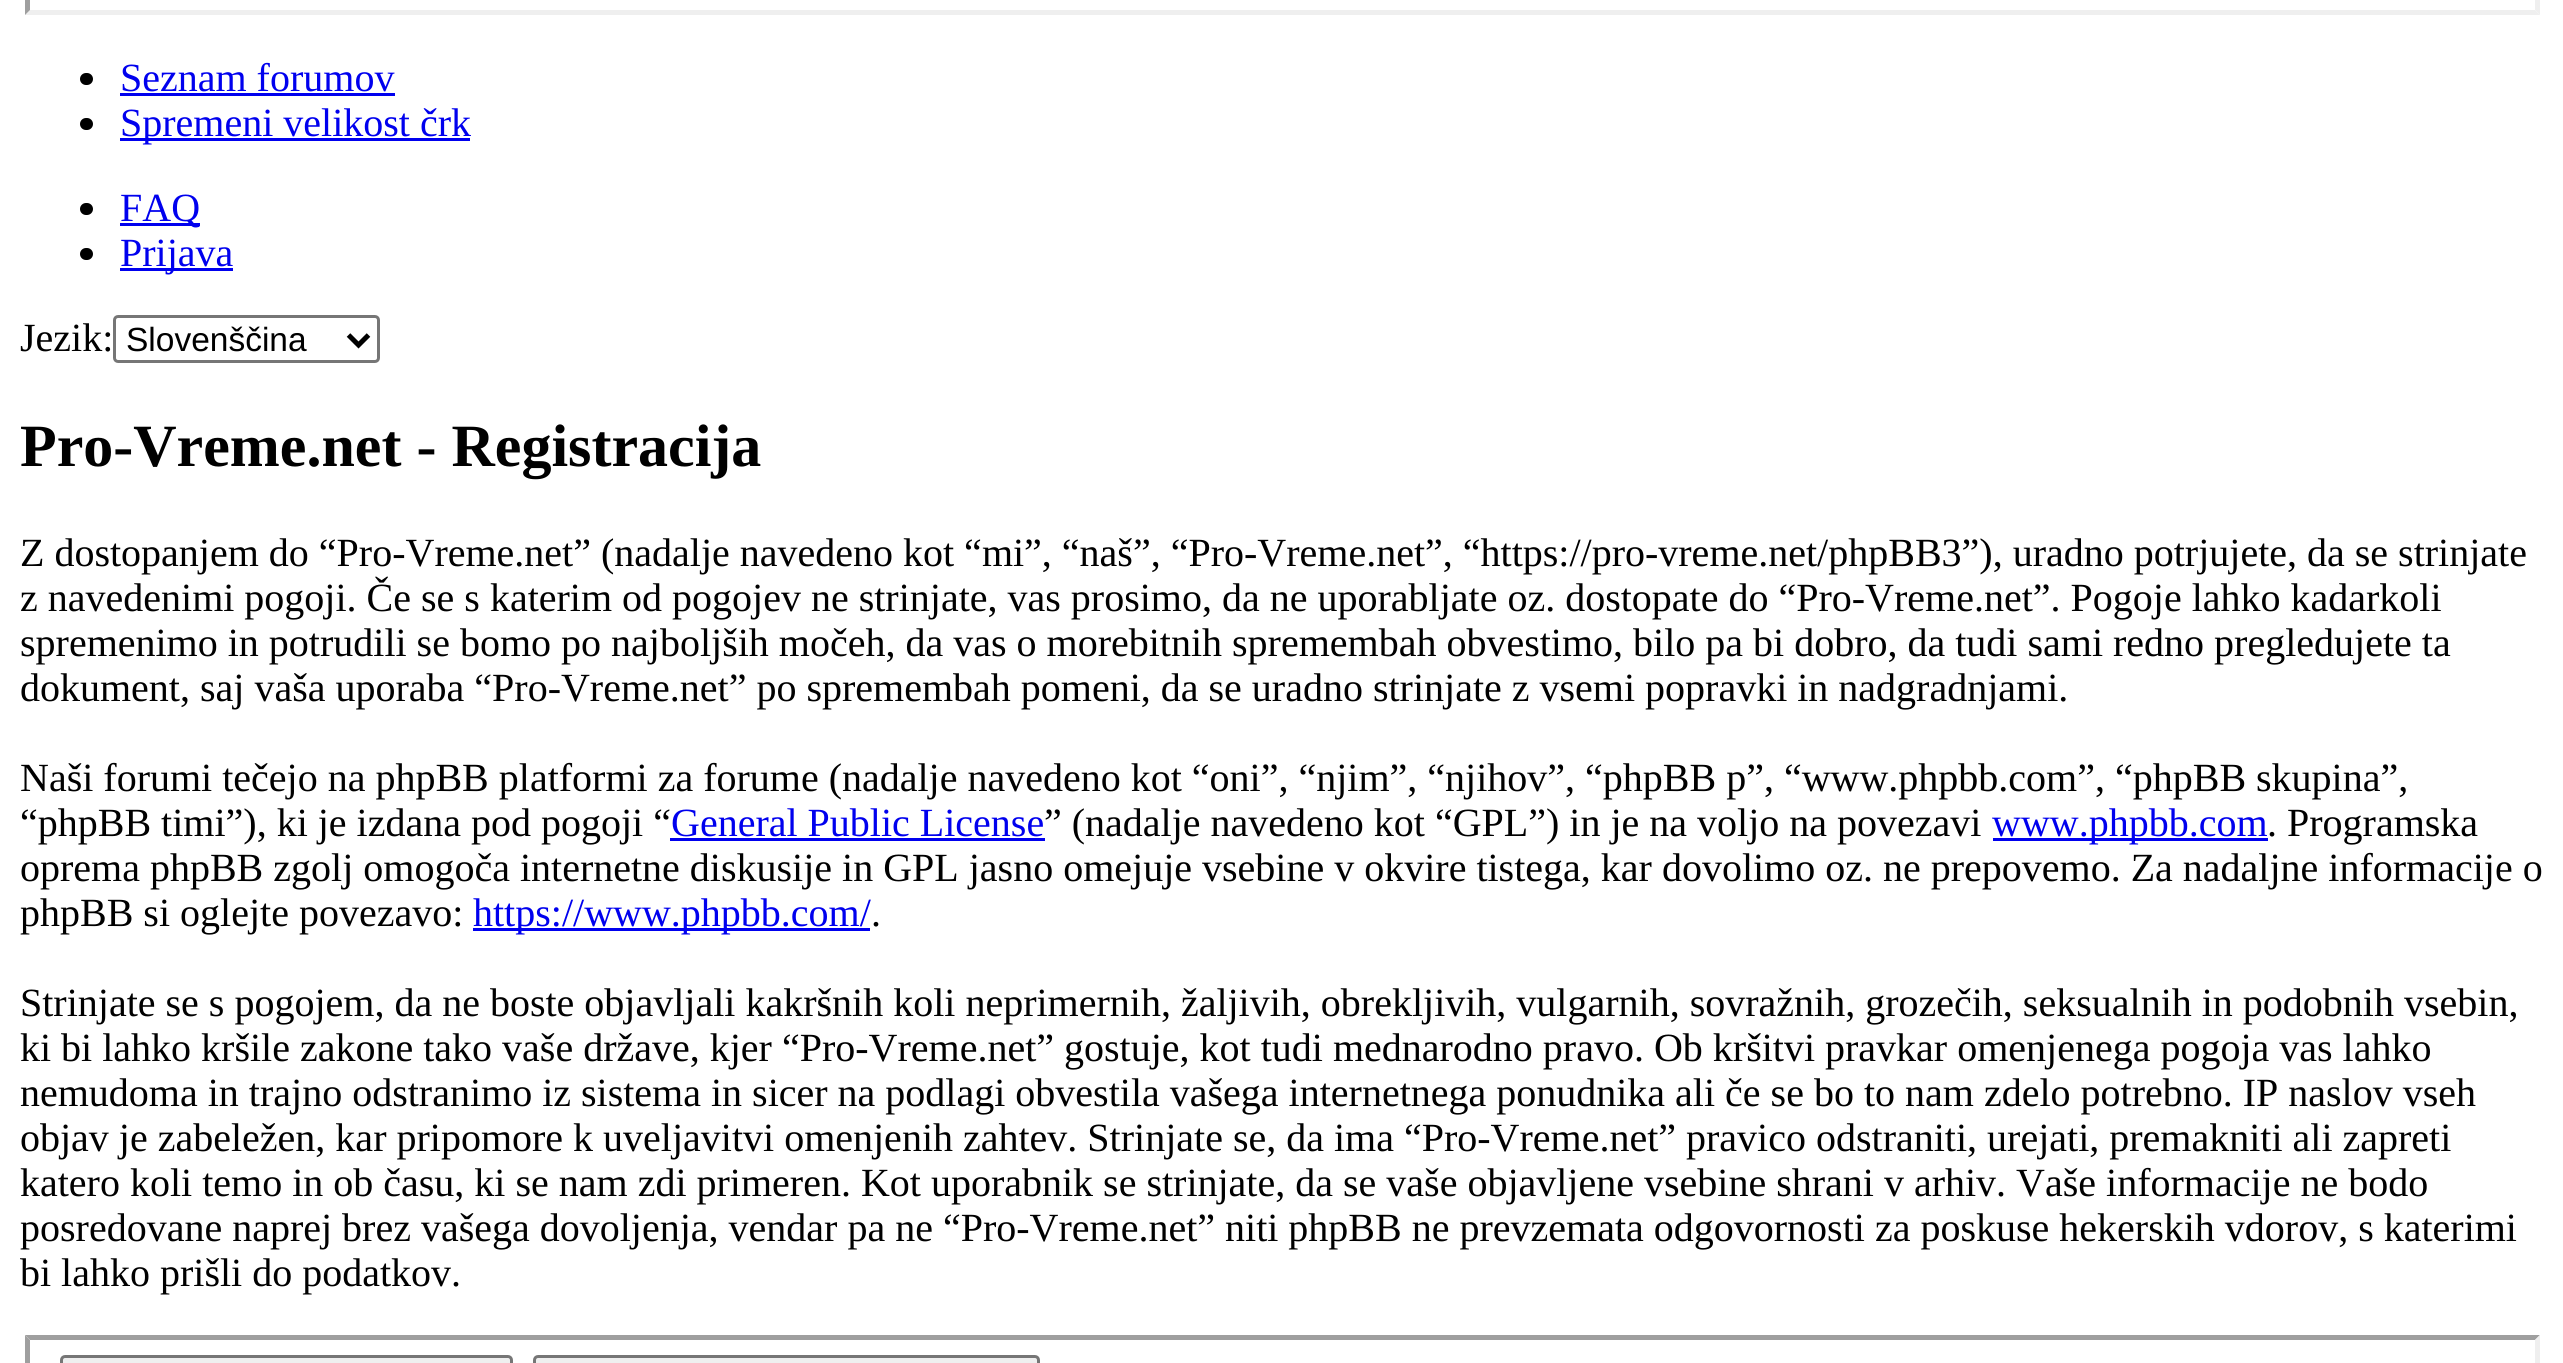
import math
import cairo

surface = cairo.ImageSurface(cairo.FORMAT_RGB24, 2563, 1363)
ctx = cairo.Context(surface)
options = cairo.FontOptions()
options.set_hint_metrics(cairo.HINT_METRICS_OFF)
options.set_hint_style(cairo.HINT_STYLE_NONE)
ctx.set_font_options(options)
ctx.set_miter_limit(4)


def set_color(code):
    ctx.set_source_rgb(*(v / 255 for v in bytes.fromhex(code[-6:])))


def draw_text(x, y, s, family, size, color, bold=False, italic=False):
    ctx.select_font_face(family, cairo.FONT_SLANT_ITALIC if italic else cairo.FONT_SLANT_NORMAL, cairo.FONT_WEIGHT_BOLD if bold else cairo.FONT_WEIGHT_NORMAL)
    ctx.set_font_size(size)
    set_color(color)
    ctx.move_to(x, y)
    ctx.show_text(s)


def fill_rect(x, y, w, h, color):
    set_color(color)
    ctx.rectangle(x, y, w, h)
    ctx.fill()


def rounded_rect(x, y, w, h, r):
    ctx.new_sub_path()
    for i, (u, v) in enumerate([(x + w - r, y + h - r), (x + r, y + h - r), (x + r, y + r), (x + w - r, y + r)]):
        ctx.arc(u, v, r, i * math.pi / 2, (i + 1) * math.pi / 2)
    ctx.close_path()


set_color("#ffffff")
ctx.paint()
set_color("#efefef")
ctx.new_path()
ctx.move_to(2540, -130)
ctx.line_to(2540, 15)
ctx.line_to(2535, 10)
ctx.line_to(2535, -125)
ctx.close_path()
ctx.fill()
ctx.new_path()
ctx.move_to(2540, 15)
ctx.line_to(25, 15)
ctx.line_to(30, 10)
ctx.line_to(2535, 10)
ctx.close_path()
ctx.fill()
set_color("#9f9f9f")
ctx.new_path()
ctx.move_to(25, 15)
ctx.line_to(25, -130)
ctx.line_to(30, -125)
ctx.line_to(30, 10)
ctx.close_path()
ctx.fill()
set_color("#000000")
rounded_rect(80, 73, 13, 12, 6)
ctx.fill()
draw_text(120, 91, "Seznam forumov", "Liberation Serif", 40, "#0000ee")
fill_rect(120, 93, 275, 3, "#0000ee")
set_color("#000000")
rounded_rect(80, 118, 13, 12, 6)
ctx.fill()
fill_rect(120, 138, 350, 3, "#0000ee")
draw_text(120, 136, "Spremeni velikost črk", "Liberation Serif", 40, "#0000ee")
set_color("#000000")
rounded_rect(80, 203, 13, 12, 6)
ctx.fill()
fill_rect(120, 223, 80, 3, "#0000ee")
draw_text(120, 221, "FAQ", "Liberation Serif", 40, "#0000ee")
set_color("#000000")
rounded_rect(80, 248, 13, 12, 6)
ctx.fill()
fill_rect(120, 268, 113, 3, "#0000ee")
draw_text(120, 266, "Prijava", "Liberation Serif", 40, "#0000ee")
draw_text(20, 351, "Jezik:", "Liberation Serif", 40, "#000000")
rounded_rect(114.5, 316.5, 264, 45, 3.5)
set_color("#767676")
ctx.set_line_width(3)
ctx.stroke()
ctx.new_path()
ctx.move_to(348.5, 335)
ctx.line_to(358.5, 345)
ctx.line_to(368.5, 335)
set_color("#000000")
ctx.set_line_width(5)
ctx.stroke()
draw_text(126, 351, "Slovenščina", "Liberation Sans", 33.5, "#000000")
draw_text(20, 466, "Pro-Vreme.net - Registracija", "Liberation Serif", 60, "#000000", bold=True)
draw_text(20, 566, "Z dostopanjem do “Pro-Vreme.net” (nadalje navedeno kot “mi”, “naš”, “Pro-Vreme.net”, “https://pro-vreme.net/phpBB3”), uradno potrjujete, da se strinjate", "Liberation Serif", 40, "#000000")
draw_text(20, 611, "z navedenimi pogoji. Če se s katerim od pogojev ne strinjate, vas prosimo, da ne uporabljate oz. dostopate do “Pro-Vreme.net”. Pogoje lahko kadarkoli", "Liberation Serif", 40, "#000000")
draw_text(20, 656, "spremenimo in potrudili se bomo po najboljših močeh, da vas o morebitnih spremembah obvestimo, bilo pa bi dobro, da tudi sami redno pregledujete ta", "Liberation Serif", 40, "#000000")
draw_text(20, 701, "dokument, saj vaša uporaba “Pro-Vreme.net” po spremembah pomeni, da se uradno strinjate z vsemi popravki in nadgradnjami.", "Liberation Serif", 40, "#000000")
draw_text(20, 791, "Naši forumi tečejo na phpBB platformi za forume (nadalje navedeno kot “oni”, “njim”, “njihov”, “phpBB p”, “www.phpbb.com”, “phpBB skupina”,", "Liberation Serif", 40, "#000000")
draw_text(20, 836, "“phpBB timi”), ki je izdana pod pogoji “", "Liberation Serif", 40, "#000000")
draw_text(671, 836, "General Public License", "Liberation Serif", 40, "#0000ee")
fill_rect(670, 838, 375, 3, "#0000ee")
draw_text(1044, 836, "” (nadalje navedeno kot “GPL”) in je na voljo na povezavi", "Liberation Serif", 40, "#000000")
fill_rect(1993, 838, 275, 3, "#0000ee")
draw_text(1992, 836, "www.phpbb.com", "Liberation Serif", 40, "#0000ee")
draw_text(2267, 836, ". Programska", "Liberation Serif", 40, "#000000")
draw_text(20, 881, "oprema phpBB zgolj omogoča internetne diskusije in GPL jasno omejuje vsebine v okvire tistega, kar dovolimo oz. ne prepovemo. Za nadaljne informacije o", "Liberation Serif", 40, "#000000")
draw_text(20, 926, "phpBB si oglejte povezavo:", "Liberation Serif", 40, "#000000")
fill_rect(473, 928, 397, 3, "#0000ee")
draw_text(473, 926, "https://www.phpbb.com/", "Liberation Serif", 40, "#0000ee")
draw_text(871, 926, ".", "Liberation Serif", 40, "#000000")
draw_text(20, 1016, "Strinjate se s pogojem, da ne boste objavljali kakršnih koli neprimernih, žaljivih, obrekljivih, vulgarnih, sovražnih, grozečih, seksualnih in podobnih vsebin,", "Liberation Serif", 40, "#000000")
draw_text(20, 1061, "ki bi lahko kršile zakone tako vaše države, kjer “Pro-Vreme.net” gostuje, kot tudi mednarodno pravo. Ob kršitvi pravkar omenjenega pogoja vas lahko", "Liberation Serif", 40, "#000000")
draw_text(20, 1106, "nemudoma in trajno odstranimo iz sistema in sicer na podlagi obvestila vašega internetnega ponudnika ali če se bo to nam zdelo potrebno. IP naslov vseh", "Liberation Serif", 40, "#000000")
draw_text(20, 1151, "objav je zabeležen, kar pripomore k uveljavitvi omenjenih zahtev. Strinjate se, da ima “Pro-Vreme.net” pravico odstraniti, urejati, premakniti ali zapreti", "Liberation Serif", 40, "#000000")
draw_text(20, 1196, "katero koli temo in ob času, ki se nam zdi primeren. Kot uporabnik se strinjate, da se vaše objavljene vsebine shrani v arhiv. Vaše informacije ne bodo", "Liberation Serif", 40, "#000000")
draw_text(20, 1241, "posredovane naprej brez vašega dovoljenja, vendar pa ne “Pro-Vreme.net” niti phpBB ne prevzemata odgovornosti za poskuse hekerskih vdorov, s katerimi", "Liberation Serif", 40, "#000000")
draw_text(20, 1286, "bi lahko prišli do podatkov.", "Liberation Serif", 40, "#000000")
set_color("#9f9f9f")
ctx.new_path()
ctx.move_to(25, 1335)
ctx.line_to(2540, 1335)
ctx.line_to(2535, 1340)
ctx.line_to(30, 1340)
ctx.close_path()
ctx.fill()
set_color("#efefef")
ctx.new_path()
ctx.move_to(2540, 1335)
ctx.line_to(2540, 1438)
ctx.line_to(2535, 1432)
ctx.line_to(2535, 1340)
ctx.close_path()
ctx.fill()
set_color("#9f9f9f")
ctx.new_path()
ctx.move_to(25, 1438)
ctx.line_to(25, 1335)
ctx.line_to(30, 1340)
ctx.line_to(30, 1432)
ctx.close_path()
ctx.fill()
set_color("#efefef")
rounded_rect(61.5, 1356.5, 450, 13, 3.5)
ctx.fill_preserve()
set_color("#767676")
ctx.set_line_width(3)
ctx.stroke()
set_color("#efefef")
rounded_rect(534.5, 1356.5, 504, 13, 3.5)
ctx.fill_preserve()
set_color("#767676")
ctx.stroke()
surface.write_to_png("output.png")
